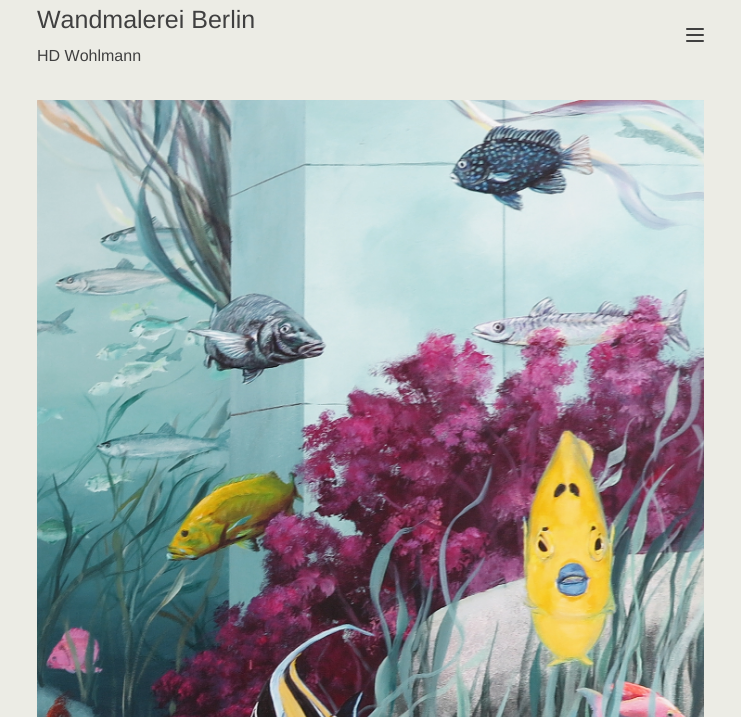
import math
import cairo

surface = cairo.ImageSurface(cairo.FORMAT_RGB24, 741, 717)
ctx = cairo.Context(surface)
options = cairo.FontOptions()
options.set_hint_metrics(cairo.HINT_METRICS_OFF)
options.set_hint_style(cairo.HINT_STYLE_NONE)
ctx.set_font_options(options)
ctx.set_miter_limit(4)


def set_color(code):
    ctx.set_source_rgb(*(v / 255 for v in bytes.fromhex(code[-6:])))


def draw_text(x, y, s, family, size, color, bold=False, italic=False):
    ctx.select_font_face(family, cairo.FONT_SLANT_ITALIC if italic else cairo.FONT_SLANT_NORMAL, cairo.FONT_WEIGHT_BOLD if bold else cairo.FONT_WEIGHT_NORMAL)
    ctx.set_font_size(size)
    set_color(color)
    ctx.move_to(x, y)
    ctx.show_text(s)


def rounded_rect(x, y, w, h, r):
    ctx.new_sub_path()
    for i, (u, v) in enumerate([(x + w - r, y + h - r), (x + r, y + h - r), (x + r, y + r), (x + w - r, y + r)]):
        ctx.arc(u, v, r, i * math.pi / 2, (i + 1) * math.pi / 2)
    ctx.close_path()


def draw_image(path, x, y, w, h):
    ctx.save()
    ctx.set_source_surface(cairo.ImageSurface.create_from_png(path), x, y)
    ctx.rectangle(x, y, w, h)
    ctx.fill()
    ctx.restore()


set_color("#ecece5")
ctx.paint()
draw_text(37, 28, "Wandmalerei Berlin", "Liberation Sans", 25, "#404040")
draw_text(37, 61, "HD Wohlmann", "Liberation Sans", 16, "#404040")
rounded_rect(686, 28, 18, 2, 1)
ctx.fill()
rounded_rect(686, 34, 18, 2, 1)
ctx.fill()
rounded_rect(686, 40, 18, 2, 1)
ctx.fill()
draw_image("assets/img1.png", 37, 100, 667, 617)
surface.write_to_png("output.png")
